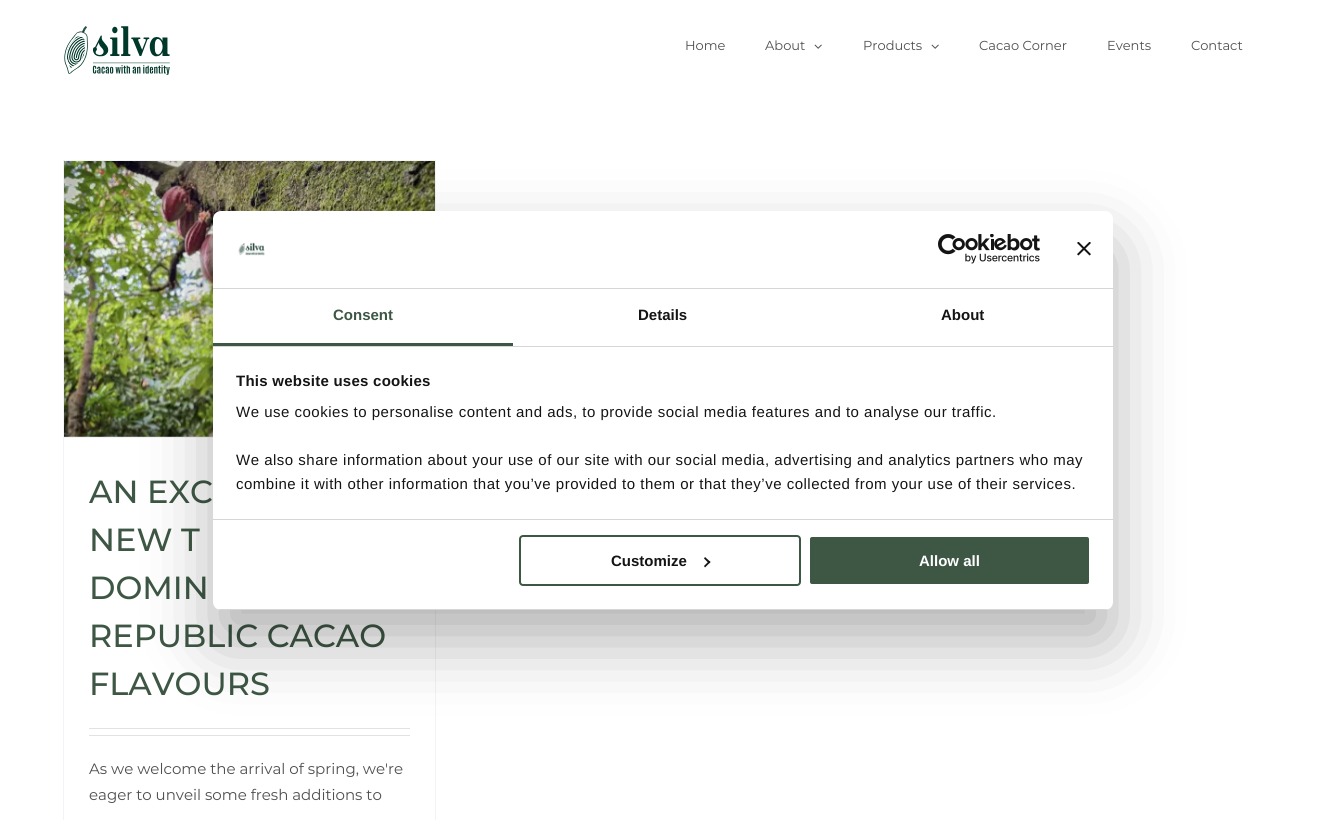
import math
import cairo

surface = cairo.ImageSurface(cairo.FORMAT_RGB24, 1326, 820)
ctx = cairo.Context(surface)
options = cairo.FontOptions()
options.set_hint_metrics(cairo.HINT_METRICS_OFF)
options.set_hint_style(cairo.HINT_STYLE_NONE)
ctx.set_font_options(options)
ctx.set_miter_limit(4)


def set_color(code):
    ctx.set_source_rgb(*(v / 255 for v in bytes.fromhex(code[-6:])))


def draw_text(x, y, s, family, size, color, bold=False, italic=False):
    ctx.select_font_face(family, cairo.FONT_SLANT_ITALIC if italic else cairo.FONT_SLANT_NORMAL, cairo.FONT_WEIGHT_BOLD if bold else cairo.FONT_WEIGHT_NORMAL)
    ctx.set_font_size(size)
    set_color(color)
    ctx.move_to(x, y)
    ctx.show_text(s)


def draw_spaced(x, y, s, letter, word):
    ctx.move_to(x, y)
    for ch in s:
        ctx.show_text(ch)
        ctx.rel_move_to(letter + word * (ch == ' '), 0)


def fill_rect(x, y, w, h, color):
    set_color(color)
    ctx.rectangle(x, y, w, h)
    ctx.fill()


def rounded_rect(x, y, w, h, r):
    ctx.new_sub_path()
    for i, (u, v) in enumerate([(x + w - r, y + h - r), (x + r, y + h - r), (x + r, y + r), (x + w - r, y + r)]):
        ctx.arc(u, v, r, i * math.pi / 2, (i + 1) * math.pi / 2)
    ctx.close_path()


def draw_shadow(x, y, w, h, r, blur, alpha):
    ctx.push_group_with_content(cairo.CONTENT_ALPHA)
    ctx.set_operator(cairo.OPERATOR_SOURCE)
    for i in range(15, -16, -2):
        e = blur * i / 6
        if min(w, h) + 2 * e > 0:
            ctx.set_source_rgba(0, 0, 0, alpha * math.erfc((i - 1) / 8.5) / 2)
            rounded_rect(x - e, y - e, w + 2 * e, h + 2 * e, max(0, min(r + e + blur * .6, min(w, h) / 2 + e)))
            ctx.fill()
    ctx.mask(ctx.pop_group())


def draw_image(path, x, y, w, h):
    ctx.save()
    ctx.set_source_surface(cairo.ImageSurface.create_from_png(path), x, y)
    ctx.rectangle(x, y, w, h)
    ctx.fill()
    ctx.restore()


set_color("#ffffff")
ctx.paint()
draw_image("assets/img1.png", 64, 26, 106, 49)
draw_text(685, 50, "Home", "Montserrat", 13, "#4f4f4f")
draw_text(765, 50, "About", "Montserrat", 13, "#4f4f4f")
draw_image("assets/img2.png", 814, 44, 8, 5)
draw_text(863, 50, "Products", "Montserrat", 13, "#4f4f4f")
draw_image("assets/img2.png", 931, 44, 8, 5)
draw_text(979, 50, "Cacao Corner", "Montserrat", 13, "#4f4f4f")
draw_text(1107, 50, "Events", "Montserrat", 13, "#4f4f4f")
draw_text(1191, 50, "Contact", "Montserrat", 13, "#4f4f4f")
fill_rect(63, 160, 373, 1, "#f2f3f5")
fill_rect(435, 160, 1, 660, "#f2f3f5")
fill_rect(63, 160, 1, 660, "#f2f3f5")
fill_rect(64, 437, 149, 1, "#f2f3f5")
draw_image("assets/img3.png", 64, 161, 371, 276)
draw_text(89, 503, "AN EXC", "Montserrat Medium", 32, "#3e5744")
draw_text(89, 551, "NEW T", "Montserrat Medium", 32, "#3e5744")
draw_text(89, 599, "DOMIN", "Montserrat Medium", 32, "#3e5744")
draw_text(89, 647, "REPUBLIC CACAO", "Montserrat Medium", 32, "#3e5744")
draw_text(89, 695, "FLAVOURS", "Montserrat Medium", 32, "#3e5744")
fill_rect(89, 728, 321, 1, "#e2e2e2")
fill_rect(89, 735, 321, 1, "#e2e2e2")
draw_text(89, 774, "As we welcome the arrival of spring, we're", "Montserrat", 15, "#4f4f4f")
draw_text(89, 800, "eager to unveil some fresh additions to", "Montserrat", 15, "#4f4f4f")
set_color("#000000")
draw_shadow(213, 243, 900, 399, 8, 34, 0.3)
set_color("#ffffff")
rounded_rect(213, 211, 900, 399, 8)
ctx.fill()
fill_rect(213, 288, 900, 1, "#d6d6d6")
draw_image("assets/img4.png", 238, 242, 27, 14)
draw_image("assets/img5.png", 938, 234, 102, 30)
draw_image("assets/img6.png", 1077, 242, 14, 14)
fill_rect(213, 346, 900, 1, "#d6d6d6")
fill_rect(213, 343, 300, 3, "#3e5744")
draw_text(333, 320, "Consent", "Liberation Sans", 15, "#3e5744", bold=True)
draw_text(638, 320, "Details", "Liberation Sans", 15, "#141414", bold=True)
draw_text(941, 320, "About", "Liberation Sans", 15, "#141414", bold=True)
fill_rect(213, 519, 900, 1, "#d6d6d6")
set_color("#141414")
draw_spaced(236, 386, "This website uses cookies", 0.25, 0)
ctx.select_font_face("Liberation Sans")
draw_spaced(236, 417, "We use cookies to personalise content and ads, to provide social media features and to analyse our traffic.", 0.5, 0)
draw_spaced(236, 465, "We also share information about your use of our site with our social media, advertising and analytics partners who may", 0.5, 0)
draw_spaced(236, 489, "combine it with other information that you’ve provided to them or that they’ve collected from your use of their services.", 0.5, 0)
ctx.save()
rounded_rect(213, 211, 900, 399, 8)
ctx.clip()
fill_rect(213, 609, 900, 1, "#d6d6d6")
ctx.restore()
rounded_rect(520, 536, 280, 49, 3)
set_color("#3e5744")
ctx.stroke()
draw_text(611, 566, "Customize", "Liberation Sans", 15, "#141414", bold=True)
ctx.new_path()
ctx.move_to(705, 557)
ctx.line_to(710.5, 562)
ctx.line_to(709, 563.5)
ctx.line_to(704, 558.5)
ctx.close_path()
ctx.fill()
ctx.new_path()
ctx.move_to(709, 561)
ctx.line_to(710.5, 562)
ctx.line_to(705, 567.5)
ctx.line_to(704, 566)
ctx.close_path()
ctx.fill()
set_color("#3e5744")
rounded_rect(809, 536, 281, 49, 3)
ctx.fill_preserve()
set_color("#ffffff")
ctx.stroke()
draw_text(919, 566, "Allow all", "Liberation Sans", 15, "#ffffff", bold=True)
surface.write_to_png("output.png")
